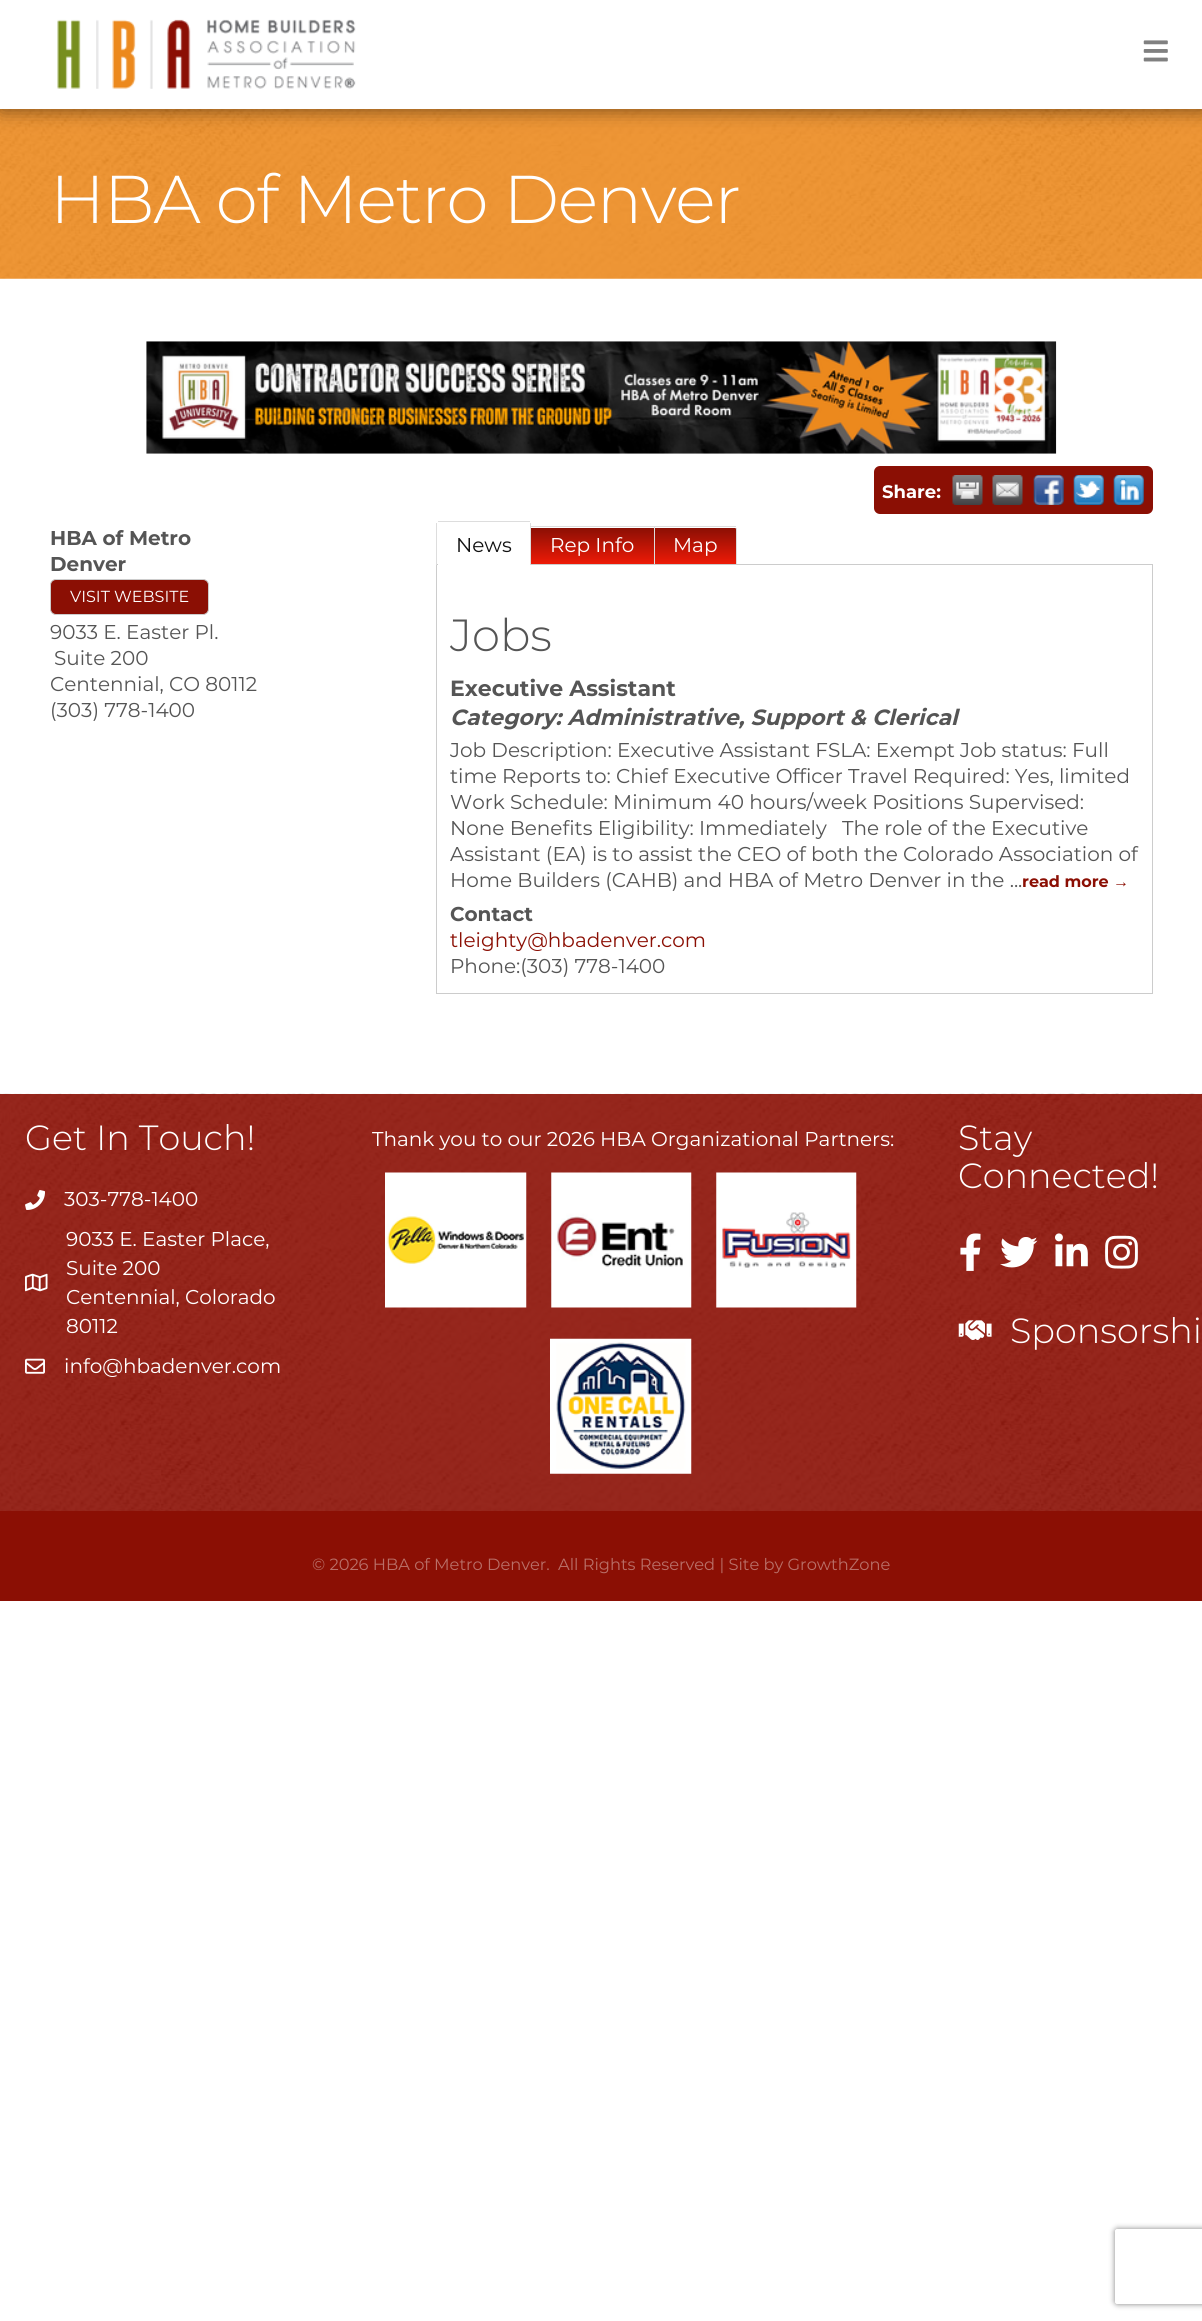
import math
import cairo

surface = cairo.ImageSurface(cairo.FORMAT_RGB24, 1202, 2321)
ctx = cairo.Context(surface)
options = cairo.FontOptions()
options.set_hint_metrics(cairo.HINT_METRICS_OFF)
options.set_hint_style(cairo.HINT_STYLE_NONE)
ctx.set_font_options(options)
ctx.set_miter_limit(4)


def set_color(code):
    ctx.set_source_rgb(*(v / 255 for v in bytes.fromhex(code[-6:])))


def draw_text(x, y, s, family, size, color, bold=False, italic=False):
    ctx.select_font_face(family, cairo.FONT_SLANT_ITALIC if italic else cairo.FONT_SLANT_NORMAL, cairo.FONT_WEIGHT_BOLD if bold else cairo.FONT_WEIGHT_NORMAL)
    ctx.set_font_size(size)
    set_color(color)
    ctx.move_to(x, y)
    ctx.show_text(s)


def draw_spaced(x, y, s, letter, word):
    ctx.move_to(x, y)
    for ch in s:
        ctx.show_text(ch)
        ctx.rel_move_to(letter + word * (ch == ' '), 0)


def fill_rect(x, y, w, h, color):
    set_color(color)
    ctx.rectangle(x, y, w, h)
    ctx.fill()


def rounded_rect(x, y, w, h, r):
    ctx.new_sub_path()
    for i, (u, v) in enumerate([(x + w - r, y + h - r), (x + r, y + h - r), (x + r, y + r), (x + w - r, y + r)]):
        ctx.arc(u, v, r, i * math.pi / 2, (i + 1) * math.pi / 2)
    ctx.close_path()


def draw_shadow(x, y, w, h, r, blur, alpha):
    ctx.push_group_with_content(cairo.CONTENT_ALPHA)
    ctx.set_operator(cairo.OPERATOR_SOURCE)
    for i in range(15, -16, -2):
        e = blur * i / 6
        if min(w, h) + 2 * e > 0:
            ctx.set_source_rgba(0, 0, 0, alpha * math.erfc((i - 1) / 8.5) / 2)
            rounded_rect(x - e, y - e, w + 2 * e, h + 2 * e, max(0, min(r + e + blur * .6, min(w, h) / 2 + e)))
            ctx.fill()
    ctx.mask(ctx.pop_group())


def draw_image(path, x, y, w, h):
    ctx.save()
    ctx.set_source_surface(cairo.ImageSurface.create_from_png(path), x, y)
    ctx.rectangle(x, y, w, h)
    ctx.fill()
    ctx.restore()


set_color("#ffffff")
ctx.paint()
draw_image("assets/img3.png", 0, 109, 1202, 170)
set_color("#000000")
draw_shadow(1, 1, 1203, 109, 0, 9.5, 0.5)
fill_rect(0, 0, 1202, 109, "#ffffff")
draw_image("assets/img1.png", 57, 19, 299, 70)
draw_image("assets/img2.png", 1143, 40, 25, 22)
ctx.select_font_face("Montserrat Light")
ctx.set_font_size(67.5)
draw_spaced(50, 223, "HBA of Metro Denver", -1.25, 0)
draw_image("assets/img4.png", 146, 341, 911, 113)
set_color("#8b0f04")
rounded_rect(874, 466, 279, 48, 6)
ctx.fill()
draw_text(882, 498, "Share:", "Montserrat", 18, "#ffffff", bold=True)
draw_image("assets/img5.png", 952, 475, 31, 30)
draw_image("assets/img6.png", 992, 475, 31, 30)
draw_image("assets/img7.png", 1033, 475, 31, 30)
draw_image("assets/img8.png", 1073, 475, 31, 30)
draw_image("assets/img9.png", 1113, 475, 31, 30)
draw_text(50, 545, "HBA of Metro", "Montserrat", 20, "#555555", bold=True)
draw_text(50, 571, "Denver", "Montserrat", 20, "#555555", bold=True)
set_color("#8b0f04")
rounded_rect(50.5, 579.5, 158, 35, 5.5)
ctx.fill_preserve()
set_color("#cccccc")
ctx.set_line_width(1)
ctx.stroke()
draw_text(70, 602, "VISIT WEBSITE", "Montserrat", 16, "#ffffff")
draw_text(50, 639, "9033 E. Easter Pl.", "Montserrat", 20, "#555555")
draw_text(54, 665, "Suite 200", "Montserrat", 20, "#555555")
draw_text(50, 691, "Centennial, CO 80112", "Montserrat", 20, "#555555")
draw_text(50, 717, "(303) 778-1400", "Montserrat", 20, "#555555")
ctx.rectangle(436.5, 564.5, 716, 429)
set_color("#cccccc")
ctx.stroke()
set_color("#ffffff")
ctx.new_path()
ctx.move_to(439, 523)
ctx.line_to(529, 523)
ctx.curve_to(529.5, 523, 530, 523.5, 530, 524)
ctx.line_to(530, 565)
ctx.line_to(438, 565)
ctx.line_to(438, 524)
ctx.curve_to(438, 523.5, 438.5, 523, 439, 523)
ctx.close_path()
ctx.fill()
fill_rect(438, 521, 92, 1, "#dddddd")
fill_rect(530, 523, 1, 42, "#dddddd")
fill_rect(436, 523, 1, 42, "#dddddd")
draw_text(456, 552, "News", "Montserrat", 20, "#111111")
gradient = cairo.LinearGradient(593, 528, 593, 564)
gradient.add_color_stop_rgba(0, 0.545, 0.059, 0.016, 1)
gradient.add_color_stop_rgba(1, 0.933, 0.102, 0.027, 1)
ctx.set_source(gradient)
ctx.rectangle(531, 528, 123, 36)
ctx.fill()
fill_rect(531, 526, 205, 1, "#dddddd")
fill_rect(654, 526, 1, 38, "#dddddd")
draw_text(550, 552, "Rep Info", "Montserrat", 20, "#ffffff")
gradient = cairo.LinearGradient(696, 528, 696, 564)
gradient.add_color_stop_rgba(0, 0.545, 0.059, 0.016, 1)
gradient.add_color_stop_rgba(1, 0.933, 0.102, 0.027, 1)
ctx.set_source(gradient)
ctx.new_path()
ctx.move_to(655, 528)
ctx.line_to(735, 528)
ctx.curve_to(735.5, 528, 736, 528.5, 736, 529)
ctx.line_to(736, 564)
ctx.line_to(655, 564)
ctx.close_path()
ctx.fill()
fill_rect(736, 528, 1, 36, "#dddddd")
draw_text(673, 552, "Map", "Montserrat", 20, "#ffffff")
draw_text(450, 651, "Jobs", "Montserrat Light", 45, "#555555")
draw_text(450, 696, "Executive Assistant", "Montserrat", 22, "#555555", bold=True)
draw_text(450, 725, "Category: Administrative, Support & Clerical", "Montserrat", 22, "#555555", bold=True, italic=True)
draw_text(450, 757, "Job Description: Executive Assistant FSLA: Exempt Job status: Full", "Montserrat", 20, "#555555")
draw_text(450, 783, "time Reports to: Chief Executive Officer Travel Required: Yes, limited", "Montserrat", 20, "#555555")
draw_text(450, 809, "Work Schedule: Minimum 40 hours/week Positions Supervised:", "Montserrat", 20, "#555555")
draw_text(450, 835, "None Benefits Eligibility: Immediately", "Montserrat", 20, "#555555")
draw_text(842, 835, "The role of the Executive", "Montserrat", 20, "#555555")
draw_text(450, 861, "Assistant (EA) is to assist the CEO of both the Colorado Association of", "Montserrat", 20, "#555555")
draw_text(450, 887, "Home Builders (CAHB) and HBA of Metro Denver in the ...", "Montserrat", 20, "#555555")
draw_text(1022, 887, "read more", "Montserrat", 16, "#8b0f04", bold=True)
draw_text(1113, 887, "→", "Liberation Sans", 16, "#8b0f04", bold=True)
draw_text(450, 921, "Contact", "Montserrat", 20, "#555555", bold=True)
draw_text(450, 947, "tleighty@hbadenver.com", "Montserrat", 20, "#8b0f04")
draw_text(450, 973, "Phone:(303) 778-1400", "Montserrat", 20, "#555555")
draw_image("assets/img10.png", 0, 1093, 1202, 418)
draw_text(25, 1150, "Get In Touch!", "Montserrat Light", 35, "#ffffff")
draw_image("assets/img11.png", 25, 1190, 20, 20)
draw_text(64, 1206, "303-778-1400", "Montserrat", 20, "#ffffff")
draw_image("assets/img12.png", 25, 1273, 23, 19)
draw_text(66, 1246, "9033 E. Easter Place,", "Montserrat", 20, "#ffffff")
draw_text(66, 1275, "Suite 200", "Montserrat", 20, "#ffffff")
draw_text(66, 1304, "Centennial, Colorado", "Montserrat", 20, "#ffffff")
draw_text(66, 1333, "80112", "Montserrat", 20, "#ffffff")
draw_image("assets/img13.png", 25, 1358, 20, 16)
draw_text(64, 1373, "info@hbadenver.com", "Montserrat", 20, "#ffffff")
draw_text(372, 1146, "Thank you to our 2026 HBA Organizational Partners:", "Montserrat", 20, "#ffffff")
draw_image("assets/img14.png", 385, 1172, 142, 136)
draw_image("assets/img15.png", 551, 1172, 141, 136)
draw_image("assets/img16.png", 716, 1172, 141, 136)
draw_image("assets/img17.png", 550, 1338, 142, 136)
draw_text(958, 1150, "Stay", "Montserrat Light", 35, "#ffffff")
draw_text(958, 1188, "Connected!", "Montserrat Light", 35, "#ffffff")
draw_image("assets/img18.png", 960, 1233, 21, 38)
draw_image("assets/img19.png", 1000, 1237, 38, 31)
draw_image("assets/img20.png", 1055, 1233, 33, 34)
draw_image("assets/img21.png", 1105, 1235, 33, 34)
draw_image("assets/img22.png", 958, 1320, 34, 20)
draw_text(1010, 1343, "Sponsorshi", "Montserrat Light", 35, "#ffffff")
fill_rect(0, 1511, 1202, 90, "#8b0f04")
draw_text(312, 1570, "© 2026 HBA of Metro Denver.", "Montserrat", 16.25, "#b96f68")
draw_text(558, 1570, "All Rights Reserved | Site by GrowthZone", "Montserrat", 16.25, "#b96f68")
ctx.save()
ctx.set_fill_rule(cairo.FILL_RULE_EVEN_ODD)
ctx.new_path()
ctx.move_to(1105, 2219)
ctx.line_to(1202, 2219)
ctx.line_to(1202, 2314)
ctx.line_to(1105, 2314)
ctx.close_path()
ctx.move_to(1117.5, 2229)
ctx.line_to(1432.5, 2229)
ctx.curve_to(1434, 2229, 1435, 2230, 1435, 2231.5)
ctx.line_to(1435, 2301.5)
ctx.curve_to(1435, 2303, 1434, 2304, 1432.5, 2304)
ctx.line_to(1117.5, 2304)
ctx.curve_to(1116, 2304, 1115, 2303, 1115, 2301.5)
ctx.line_to(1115, 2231.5)
ctx.curve_to(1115, 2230, 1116, 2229, 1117.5, 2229)
ctx.close_path()
ctx.clip()
set_color("#808080")
draw_shadow(1115, 2229, 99, 75, 2.5, 3, 1)
ctx.restore()
surface.write_to_png("output.png")
